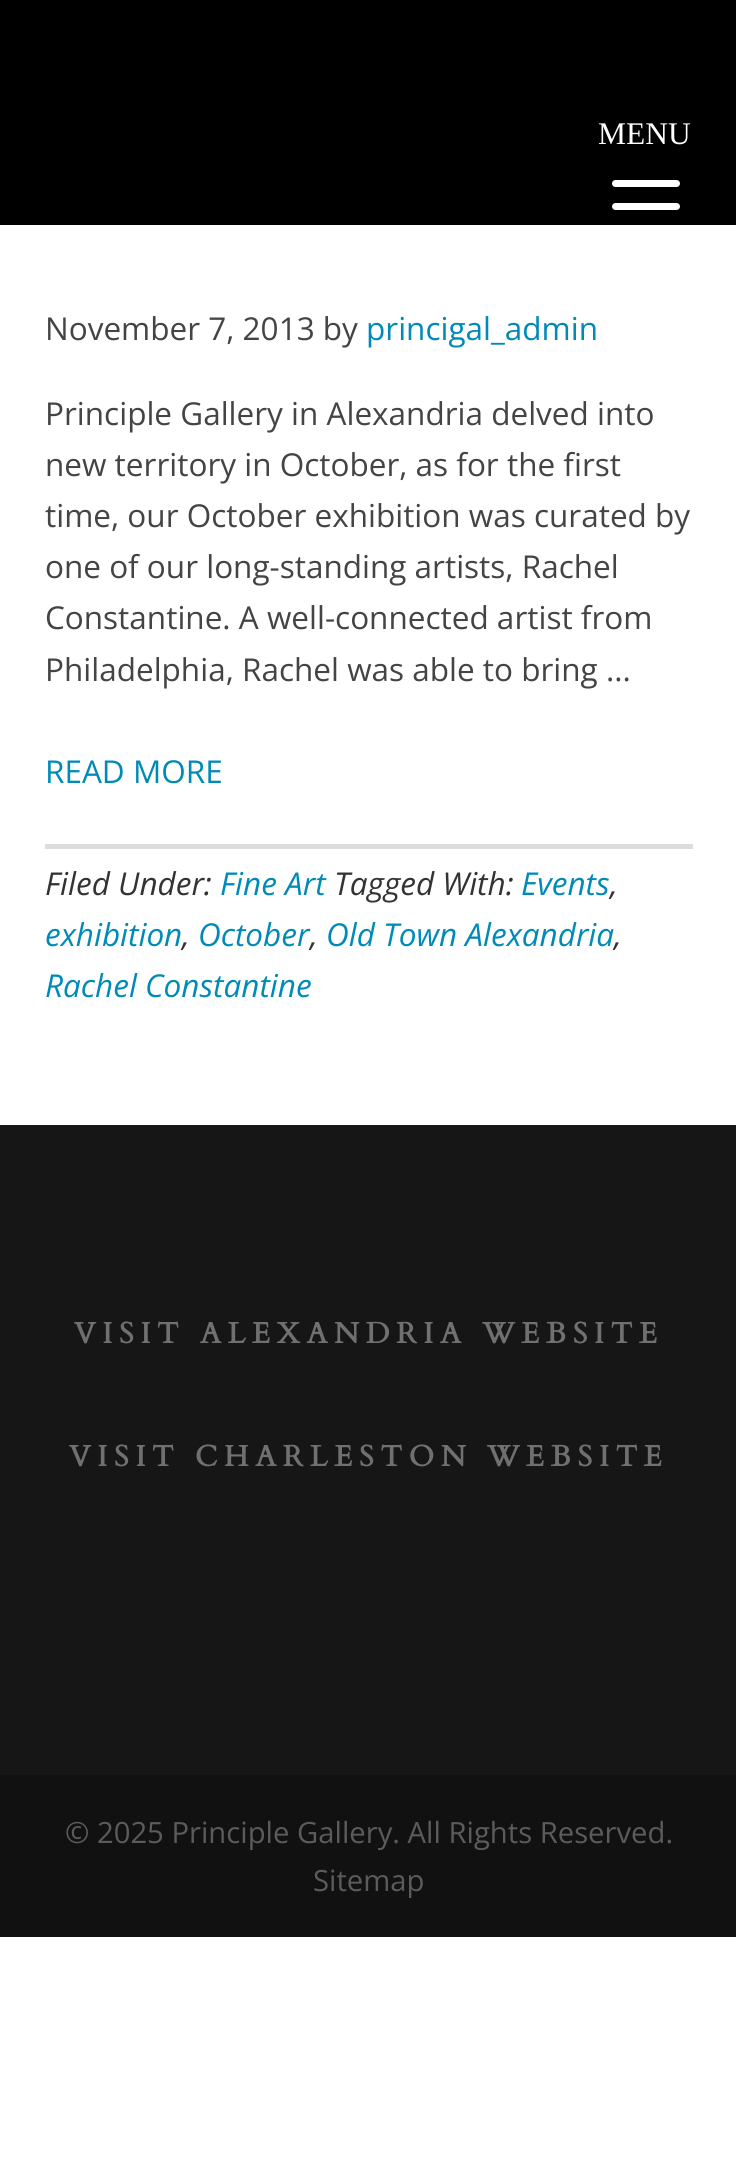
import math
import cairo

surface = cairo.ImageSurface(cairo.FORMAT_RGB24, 736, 2178)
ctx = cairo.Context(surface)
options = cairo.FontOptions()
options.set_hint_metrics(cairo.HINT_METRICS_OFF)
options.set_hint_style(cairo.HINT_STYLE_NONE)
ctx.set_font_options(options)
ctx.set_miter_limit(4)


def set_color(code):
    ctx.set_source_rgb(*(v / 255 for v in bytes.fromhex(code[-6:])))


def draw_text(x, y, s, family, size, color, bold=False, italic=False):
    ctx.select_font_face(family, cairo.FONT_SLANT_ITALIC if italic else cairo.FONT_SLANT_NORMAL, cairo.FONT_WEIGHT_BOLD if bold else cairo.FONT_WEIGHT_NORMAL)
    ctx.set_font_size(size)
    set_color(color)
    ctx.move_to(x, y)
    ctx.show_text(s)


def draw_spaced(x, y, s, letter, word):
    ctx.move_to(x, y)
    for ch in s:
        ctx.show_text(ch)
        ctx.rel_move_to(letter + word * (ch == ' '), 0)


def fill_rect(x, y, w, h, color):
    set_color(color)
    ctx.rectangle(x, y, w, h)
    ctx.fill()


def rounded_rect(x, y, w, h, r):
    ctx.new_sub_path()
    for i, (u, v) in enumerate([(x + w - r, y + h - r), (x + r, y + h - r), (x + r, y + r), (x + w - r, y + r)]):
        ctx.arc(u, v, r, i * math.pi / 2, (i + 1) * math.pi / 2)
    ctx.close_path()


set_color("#ffffff")
ctx.paint()
fill_rect(0, 0, 736, 225, "#000000")
draw_text(598, 144, "MENU", "Liberation Serif", 31.5, "#ffffff")
rounded_rect(612, 203, 68, 7, 3.5)
ctx.fill()
rounded_rect(612, 180, 68, 7, 3.5)
ctx.fill()
draw_text(45, 340, "November 7, 2013 by", "Open Sans", 31.5, "#444444")
draw_text(366, 340, "princigal_admin", "Open Sans", 31.5, "#008ab8")
draw_text(45, 425, "Principle Gallery in Alexandria delved into", "Open Sans", 31.5, "#444444")
draw_text(45, 476, "new territory in October, as for the first", "Open Sans", 31.5, "#444444")
draw_text(45, 527, "time, our October exhibition was curated by", "Open Sans", 31.5, "#444444")
draw_text(45, 578, "one of our long-standing artists, Rachel", "Open Sans", 31.5, "#444444")
draw_text(45, 629, "Constantine. A well-connected artist from", "Open Sans", 31.5, "#444444")
draw_text(45, 681, "Philadelphia, Rachel was able to bring ...", "Open Sans", 31.5, "#444444")
draw_text(45, 783, "READ MORE", "Open Sans", 31.5, "#008ab8")
fill_rect(45, 844, 648, 5, "#dddddd")
draw_text(45, 895, "Filed Under:", "Open Sans", 31.5, "#333333", italic=True)
draw_text(220, 895, "Fine Art", "Open Sans", 31.5, "#008ab8", italic=True)
draw_text(334, 895, "Tagged With:", "Open Sans", 31.5, "#333333", italic=True)
draw_text(521, 895, "Events", "Open Sans", 31.5, "#008ab8", italic=True)
draw_text(610, 895, ",", "Open Sans", 31.5, "#333333", italic=True)
draw_text(45, 946, "exhibition", "Open Sans", 31.5, "#008ab8", italic=True)
draw_text(182, 946, ",", "Open Sans", 31.5, "#333333", italic=True)
draw_text(198, 946, "October", "Open Sans", 31.5, "#008ab8", italic=True)
draw_text(310, 946, ",", "Open Sans", 31.5, "#333333", italic=True)
draw_text(326, 946, "Old Town Alexandria", "Open Sans", 31.5, "#008ab8", italic=True)
draw_text(614, 946, ",", "Open Sans", 31.5, "#333333", italic=True)
draw_text(45, 997, "Rachel Constantine", "Open Sans", 31.5, "#008ab8", italic=True)
fill_rect(0, 1125, 736, 650, "#161616")
ctx.select_font_face("Cardo", cairo.FONT_SLANT_NORMAL, cairo.FONT_WEIGHT_BOLD)
ctx.set_font_size(29.25)
set_color("#707070")
draw_spaced(74, 1343, "VISIT ALEXANDRIA WEBSITE", 6.75, 0)
draw_spaced(69, 1466, "VISIT CHARLESTON WEBSITE", 6.75, 0)
fill_rect(0, 1775, 736, 162, "#111111")
draw_text(65, 1843, "© 2025 Principle Gallery. All Rights Reserved.", "Open Sans", 29.25, "#5b5b5b")
draw_text(313, 1891, "Sitemap", "Open Sans", 29.25, "#5b5b5b")
surface.write_to_png("output.png")
